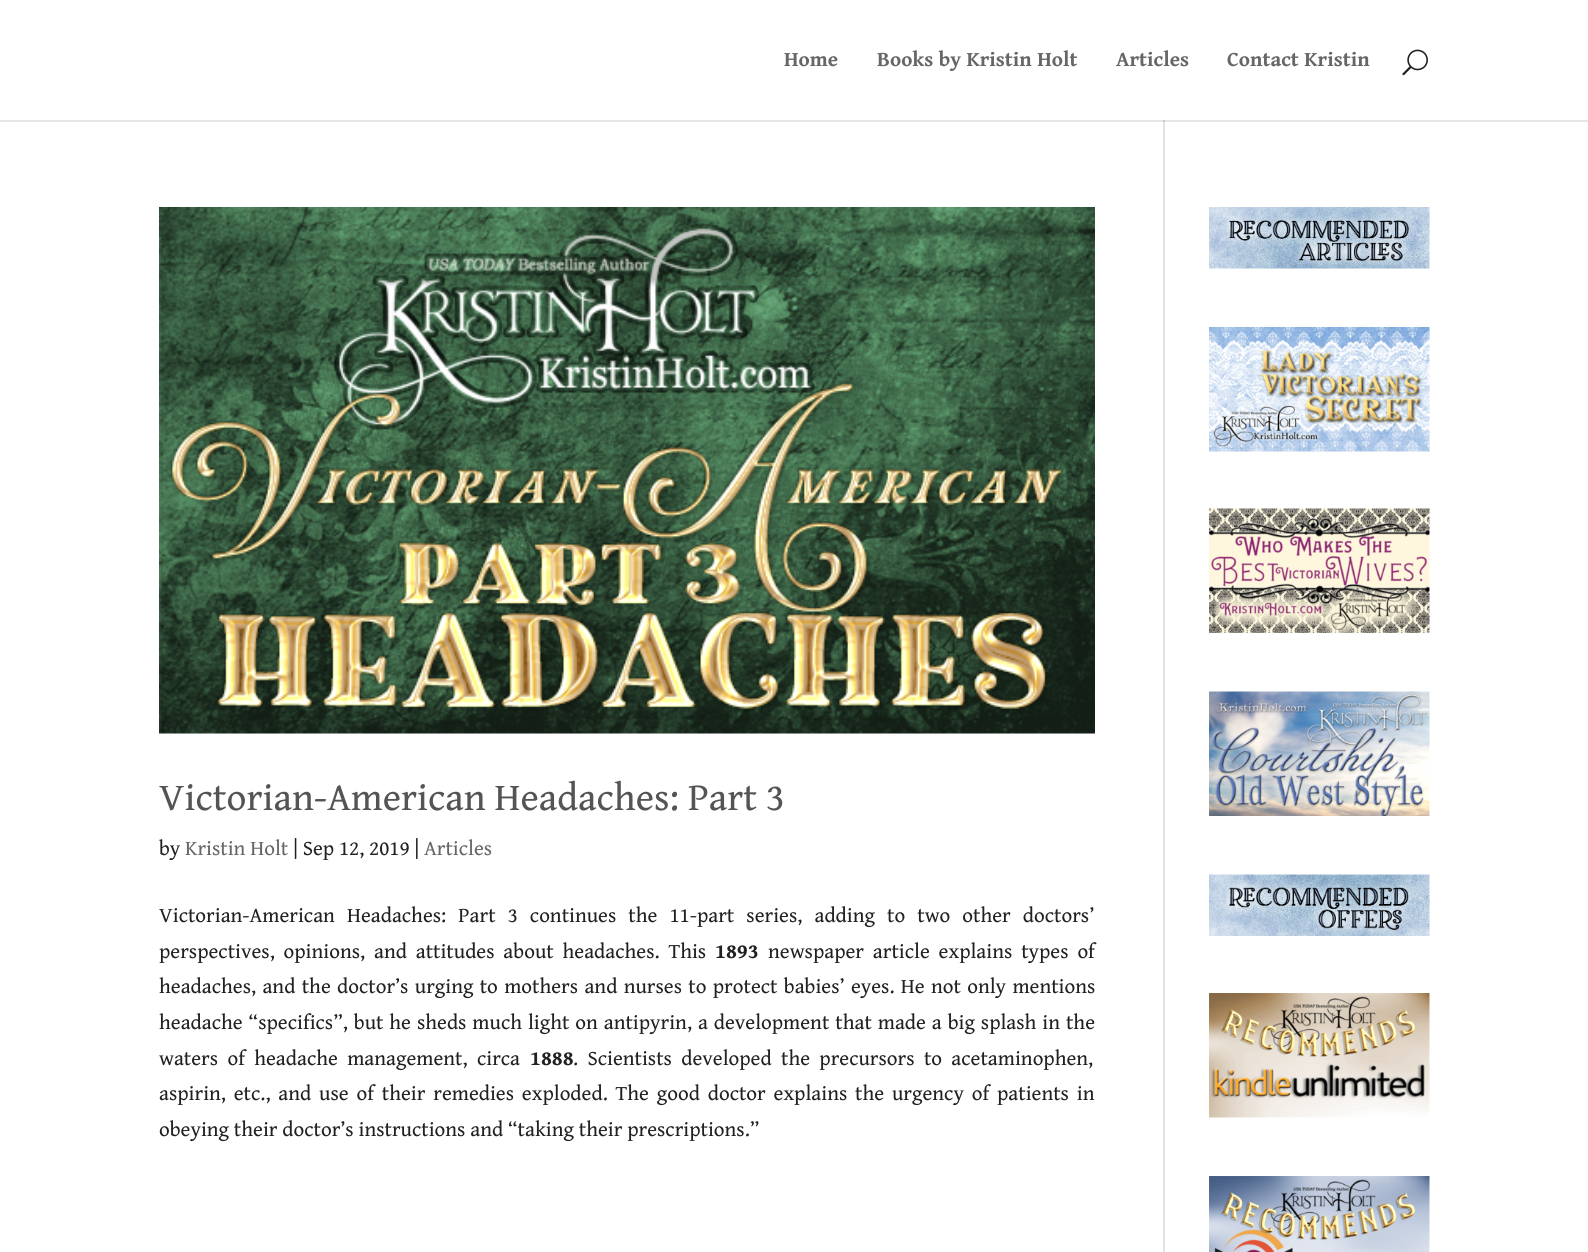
import math
import cairo

surface = cairo.ImageSurface(cairo.FORMAT_RGB24, 1588, 1252)
ctx = cairo.Context(surface)
options = cairo.FontOptions()
options.set_hint_metrics(cairo.HINT_METRICS_OFF)
options.set_hint_style(cairo.HINT_STYLE_NONE)
ctx.set_font_options(options)
ctx.set_miter_limit(4)


def set_color(code):
    ctx.set_source_rgb(*(v / 255 for v in bytes.fromhex(code[-6:])))


def draw_text(x, y, s, family, size, color, bold=False, italic=False):
    ctx.select_font_face(family, cairo.FONT_SLANT_ITALIC if italic else cairo.FONT_SLANT_NORMAL, cairo.FONT_WEIGHT_BOLD if bold else cairo.FONT_WEIGHT_NORMAL)
    ctx.set_font_size(size)
    set_color(color)
    ctx.move_to(x, y)
    ctx.show_text(s)


def draw_spaced(x, y, s, letter, word):
    ctx.move_to(x, y)
    for ch in s:
        ctx.show_text(ch)
        ctx.rel_move_to(letter + word * (ch == ' '), 0)


def fill_rect(x, y, w, h, color):
    set_color(color)
    ctx.rectangle(x, y, w, h)
    ctx.fill()


def draw_image(path, x, y, w, h):
    ctx.save()
    ctx.set_source_surface(cairo.ImageSurface.create_from_png(path), x, y)
    ctx.rectangle(x, y, w, h)
    ctx.fill()
    ctx.restore()


set_color("#ffffff")
ctx.paint()
fill_rect(1163, 120, 2, 1132, "#e2e2e2")
ctx.set_source_rgba(0, 0, 0, 0.1)
ctx.new_path()
ctx.move_to(0, 120)
ctx.line_to(0, 122)
ctx.line_to(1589, 122)
ctx.line_to(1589, 2)
ctx.line_to(1588, 2)
ctx.line_to(1588, 120)
ctx.close_path()
ctx.fill()
draw_text(784, 66, "Home", "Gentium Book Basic", 21, "#666666", bold=True)
draw_text(877, 66, "Books by Kristin Holt", "Gentium Book Basic", 21, "#666666", bold=True)
draw_text(1116, 66, "Articles", "Gentium Book Basic", 21, "#666666", bold=True)
draw_text(1227, 66, "Contact Kristin", "Gentium Book Basic", 21, "#666666", bold=True)
draw_image("assets/img1.png", 1402, 49, 26, 27)
draw_image("assets/img2.png", 159, 207, 936, 527)
draw_text(159, 810, "Victorian-American Headaches: Part 3", "Gentium Book Basic", 39, "#545454")
draw_text(159, 855, "by", "Gentium Book Basic", 21, "#212121")
draw_text(185, 855, "Kristin Holt", "Gentium Book Basic", 21, "#666666")
draw_text(293, 855, "| Sep 12, 2019 |", "Gentium Book Basic", 21, "#212121")
draw_text(424, 855, "Articles", "Gentium Book Basic", 21, "#666666")
set_color("#212121")
draw_spaced(159, 922, "Victorian-American Headaches: Part 3 continues the 11-part series, adding to two other doctors’", 0, 7.25)
draw_spaced(159, 958, "perspectives, opinions, and attitudes about headaches. This", 0, 4)
draw_text(715, 958, "1893", "Gentium Book Basic", 21, "#212121", bold=True)
ctx.select_font_face("Gentium Book Basic")
draw_spaced(768, 958, "newspaper article explains types of", 0, 4)
draw_spaced(159, 993, "headaches, and the doctor’s urging to mothers and nurses to protect babies’ eyes. He not only mentions", 0, 1.5)
draw_spaced(159, 1029, "headache “specifics”, but he sheds much light on antipyrin, a development that made a big splash in the", 0, 1.1)
draw_spaced(159, 1065, "waters of headache management, circa", 0, 4.5)
draw_text(530, 1065, "1888", "Gentium Book Basic", 21, "#212121", bold=True)
ctx.select_font_face("Gentium Book Basic")
draw_spaced(573, 1065, ". Scientists developed the precursors to acetaminophen,", 0, 4.5)
draw_spaced(159, 1100, "aspirin, etc., and use of their remedies exploded. The good doctor explains the urgency of patients in", 0, 3)
draw_text(159, 1136, "obeying their doctor’s instructions and “taking their prescriptions.”", "Gentium Book Basic", 21, "#212121")
draw_image("assets/img3.png", 1209, 207, 221, 62)
draw_image("assets/img4.png", 1209, 327, 221, 125)
draw_image("assets/img5.png", 1209, 508, 221, 125)
draw_image("assets/img6.png", 1209, 691, 221, 125)
draw_image("assets/img7.png", 1209, 874, 221, 62)
draw_image("assets/img8.png", 1209, 993, 221, 125)
draw_image("assets/img9.png", 1209, 1176, 221, 76)
surface.write_to_png("output.png")
